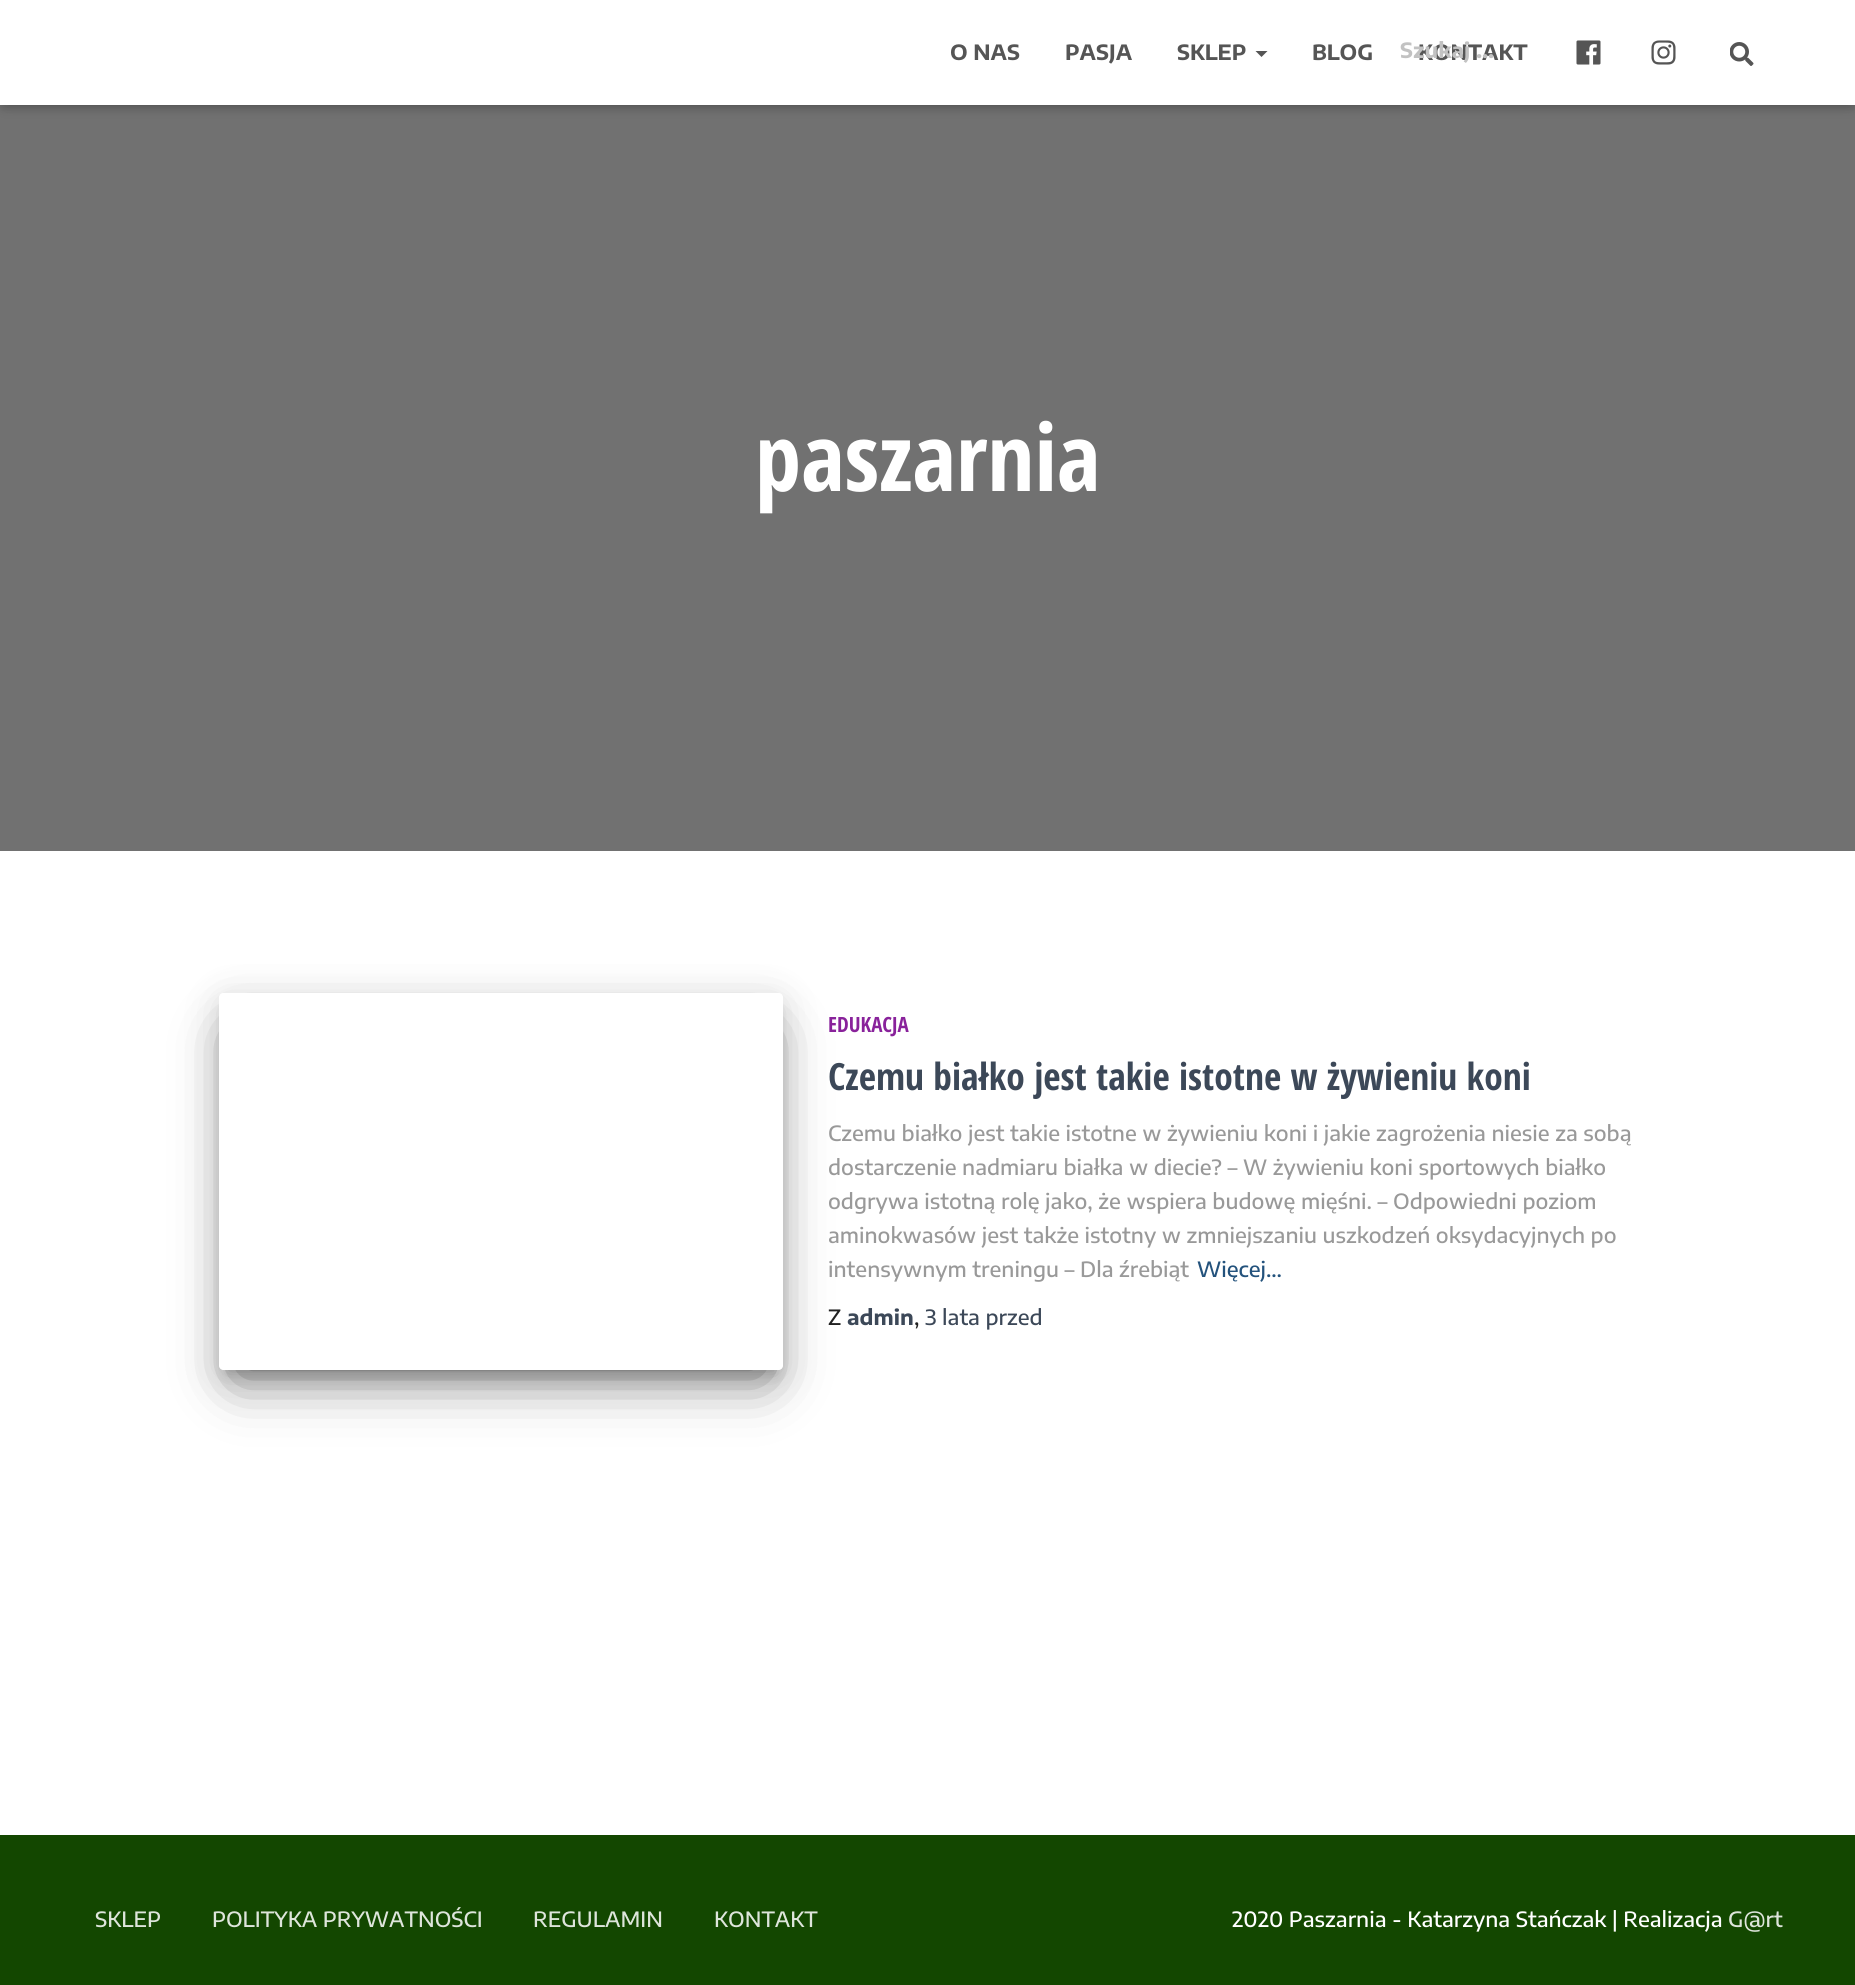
import math
import cairo

surface = cairo.ImageSurface(cairo.FORMAT_RGB24, 1855, 1985)
ctx = cairo.Context(surface)
options = cairo.FontOptions()
options.set_hint_metrics(cairo.HINT_METRICS_OFF)
options.set_hint_style(cairo.HINT_STYLE_NONE)
ctx.set_font_options(options)
ctx.set_miter_limit(4)


def set_color(code):
    ctx.set_source_rgb(*(v / 255 for v in bytes.fromhex(code[-6:])))


def draw_text(x, y, s, family, size, color, bold=False, italic=False):
    ctx.select_font_face(family, cairo.FONT_SLANT_ITALIC if italic else cairo.FONT_SLANT_NORMAL, cairo.FONT_WEIGHT_BOLD if bold else cairo.FONT_WEIGHT_NORMAL)
    ctx.set_font_size(size)
    set_color(color)
    ctx.move_to(x, y)
    ctx.show_text(s)


def fill_rect(x, y, w, h, color):
    set_color(color)
    ctx.rectangle(x, y, w, h)
    ctx.fill()


def rounded_rect(x, y, w, h, r):
    ctx.new_sub_path()
    for i, (u, v) in enumerate([(x + w - r, y + h - r), (x + r, y + h - r), (x + r, y + r), (x + w - r, y + r)]):
        ctx.arc(u, v, r, i * math.pi / 2, (i + 1) * math.pi / 2)
    ctx.close_path()


def draw_shadow(x, y, w, h, r, blur, alpha):
    ctx.push_group_with_content(cairo.CONTENT_ALPHA)
    ctx.set_operator(cairo.OPERATOR_SOURCE)
    for i in range(15, -16, -2):
        e = blur * i / 6
        if min(w, h) + 2 * e > 0:
            ctx.set_source_rgba(0, 0, 0, alpha * math.erfc((i - 1) / 8.5) / 2)
            rounded_rect(x - e, y - e, w + 2 * e, h + 2 * e, max(0, min(r + e + blur * .6, min(w, h) / 2 + e)))
            ctx.fill()
    ctx.mask(ctx.pop_group())


def draw_image(path, x, y, w, h):
    ctx.save()
    ctx.set_source_surface(cairo.ImageSurface.create_from_png(path), x, y)
    ctx.rectangle(x, y, w, h)
    ctx.fill()
    ctx.restore()


set_color("#717171")
ctx.paint()
set_color("#000000")
draw_shadow(3, 9, 1850, 99, 0, 4, 0.1)
draw_shadow(0, 2, 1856, 105, 0, 7.5, 0.12)
draw_shadow(9, 11, 1838, 87, 0, 7.5, 0.42)
fill_rect(0, 0, 1855, 105, "#ffffff")
draw_text(950, 60, "O NAS", "Encode Sans Semi Expanded", 21, "#555555", bold=True)
draw_text(1065, 60, "PASJA", "Encode Sans Semi Expanded", 21, "#555555", bold=True)
draw_text(1177, 60, "SKLEP", "Encode Sans Semi Expanded", 21, "#555555", bold=True)
ctx.new_path()
ctx.move_to(1255.5, 51)
ctx.line_to(1267.5, 51)
ctx.line_to(1261.5, 57)
ctx.close_path()
ctx.fill()
draw_text(1312, 60, "BLOG", "Encode Sans Semi Expanded", 21, "#555555", bold=True)
draw_text(1418, 60, "KONTAKT", "Encode Sans Semi Expanded", 21, "#555555", bold=True)
draw_text(1400, 58, "Szukaj …", "Encode Sans Semi Expanded", 21, "#c2c2c2", bold=True)
draw_image("assets/img1.png", 1730, 42, 24, 24)
draw_image("assets/img2.png", 1576, 40, 25, 25)
draw_image("assets/img3.png", 1651, 40, 25, 25)
draw_text(755, 491, "paszarnia", "Open Sans Condensed", 93, "#ffffff", bold=True)
fill_rect(0, 851, 1855, 984, "#ffffff")
ctx.save()
ctx.set_fill_rule(cairo.FILL_RULE_EVEN_ODD)
ctx.new_path()
ctx.move_to(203, 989)
ctx.line_to(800, 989)
ctx.line_to(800, 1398)
ctx.line_to(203, 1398)
ctx.close_path()
ctx.move_to(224, 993)
ctx.line_to(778, 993)
ctx.curve_to(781, 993, 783, 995, 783, 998)
ctx.line_to(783, 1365)
ctx.curve_to(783, 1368, 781, 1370, 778, 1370)
ctx.line_to(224, 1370)
ctx.curve_to(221, 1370, 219, 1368, 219, 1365)
ctx.line_to(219, 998)
ctx.curve_to(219, 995, 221, 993, 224, 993)
ctx.close_path()
ctx.clip()
set_color("#000000")
draw_shadow(227, 1013, 549, 361, 0, 7.5, 0.2)
ctx.restore()
ctx.save()
ctx.set_fill_rule(cairo.FILL_RULE_EVEN_ODD)
ctx.new_path()
ctx.move_to(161, 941)
ctx.line_to(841, 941)
ctx.line_to(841, 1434)
ctx.line_to(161, 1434)
ctx.close_path()
ctx.move_to(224, 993)
ctx.line_to(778, 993)
ctx.curve_to(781, 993, 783, 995, 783, 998)
ctx.line_to(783, 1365)
ctx.curve_to(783, 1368, 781, 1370, 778, 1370)
ctx.line_to(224, 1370)
ctx.curve_to(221, 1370, 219, 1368, 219, 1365)
ctx.line_to(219, 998)
ctx.curve_to(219, 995, 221, 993, 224, 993)
ctx.close_path()
ctx.clip()
set_color("#000000")
draw_shadow(219, 999, 564, 377, 5, 19, 0.12)
ctx.restore()
ctx.save()
ctx.set_fill_rule(cairo.FILL_RULE_EVEN_ODD)
ctx.new_path()
ctx.move_to(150, 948)
ctx.line_to(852, 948)
ctx.line_to(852, 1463)
ctx.line_to(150, 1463)
ctx.close_path()
ctx.move_to(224, 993)
ctx.line_to(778, 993)
ctx.curve_to(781, 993, 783, 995, 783, 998)
ctx.line_to(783, 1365)
ctx.curve_to(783, 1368, 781, 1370, 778, 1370)
ctx.line_to(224, 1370)
ctx.curve_to(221, 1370, 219, 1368, 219, 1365)
ctx.line_to(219, 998)
ctx.curve_to(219, 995, 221, 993, 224, 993)
ctx.close_path()
ctx.clip()
set_color("#000000")
draw_shadow(237, 1035, 528, 341, 0, 28.5, 0.56)
ctx.restore()
draw_text(828, 1032, "EDUKACJA", "Open Sans Condensed", 21, "#89229b", bold=True)
draw_text(828, 1090, "Czemu białko jest takie istotne w żywieniu koni", "Open Sans Condensed", 37.5, "#3c4858", bold=True)
draw_text(828, 1141, "Czemu białko jest takie istotne w żywieniu koni i jakie zagrożenia niesie za sobą", "Encode Sans Semi Expanded Medium", 21, "#999999")
draw_text(828, 1175, "dostarczenie nadmiaru białka w diecie? – W żywieniu koni sportowych białko", "Encode Sans Semi Expanded Medium", 21, "#999999")
draw_text(828, 1209, "odgrywa istotną rolę jako, że wspiera budowę mięśni. – Odpowiedni poziom", "Encode Sans Semi Expanded Medium", 21, "#999999")
draw_text(828, 1243, "aminokwasów jest także istotny w zmniejszaniu uszkodzeń oksydacyjnych po", "Encode Sans Semi Expanded Medium", 21, "#999999")
draw_text(828, 1277, "intensywnym treningu – Dla źrebiąt", "Encode Sans Semi Expanded Medium", 21, "#999999")
draw_text(1197, 1277, "Więcej…", "Encode Sans Semi Expanded Medium", 21, "#23527c")
draw_text(828, 1325, "Z", "Encode Sans Semi Expanded Medium", 21, "#212121")
draw_text(847, 1325, "admin", "Encode Sans Semi Expanded", 21, "#3c4858", bold=True)
draw_text(914, 1325, ",", "Encode Sans Semi Expanded Medium", 21, "#212121")
draw_text(925, 1325, "3 lata przed", "Encode Sans Semi Expanded Medium", 21, "#3c4858")
fill_rect(0, 1835, 1855, 150, "#134700")
draw_text(95, 1927, "SKLEP", "Encode Sans Semi Expanded Medium", 21, "#dee5db")
draw_text(212, 1927, "POLITYKA PRYWATNOŚCI", "Encode Sans Semi Expanded Medium", 21, "#dee5db")
draw_text(533, 1927, "REGULAMIN", "Encode Sans Semi Expanded Medium", 21, "#dee5db")
draw_text(714, 1927, "KONTAKT", "Encode Sans Semi Expanded Medium", 21, "#dee5db")
draw_text(1232, 1927, "2020 Paszarnia - Katarzyna Stańczak | Realizacja", "Encode Sans Semi Expanded Medium", 21, "#ffffff")
draw_text(1728, 1927, "G@rt", "Encode Sans Semi Expanded Medium", 21, "#dee5db")
surface.write_to_png("output.png")
